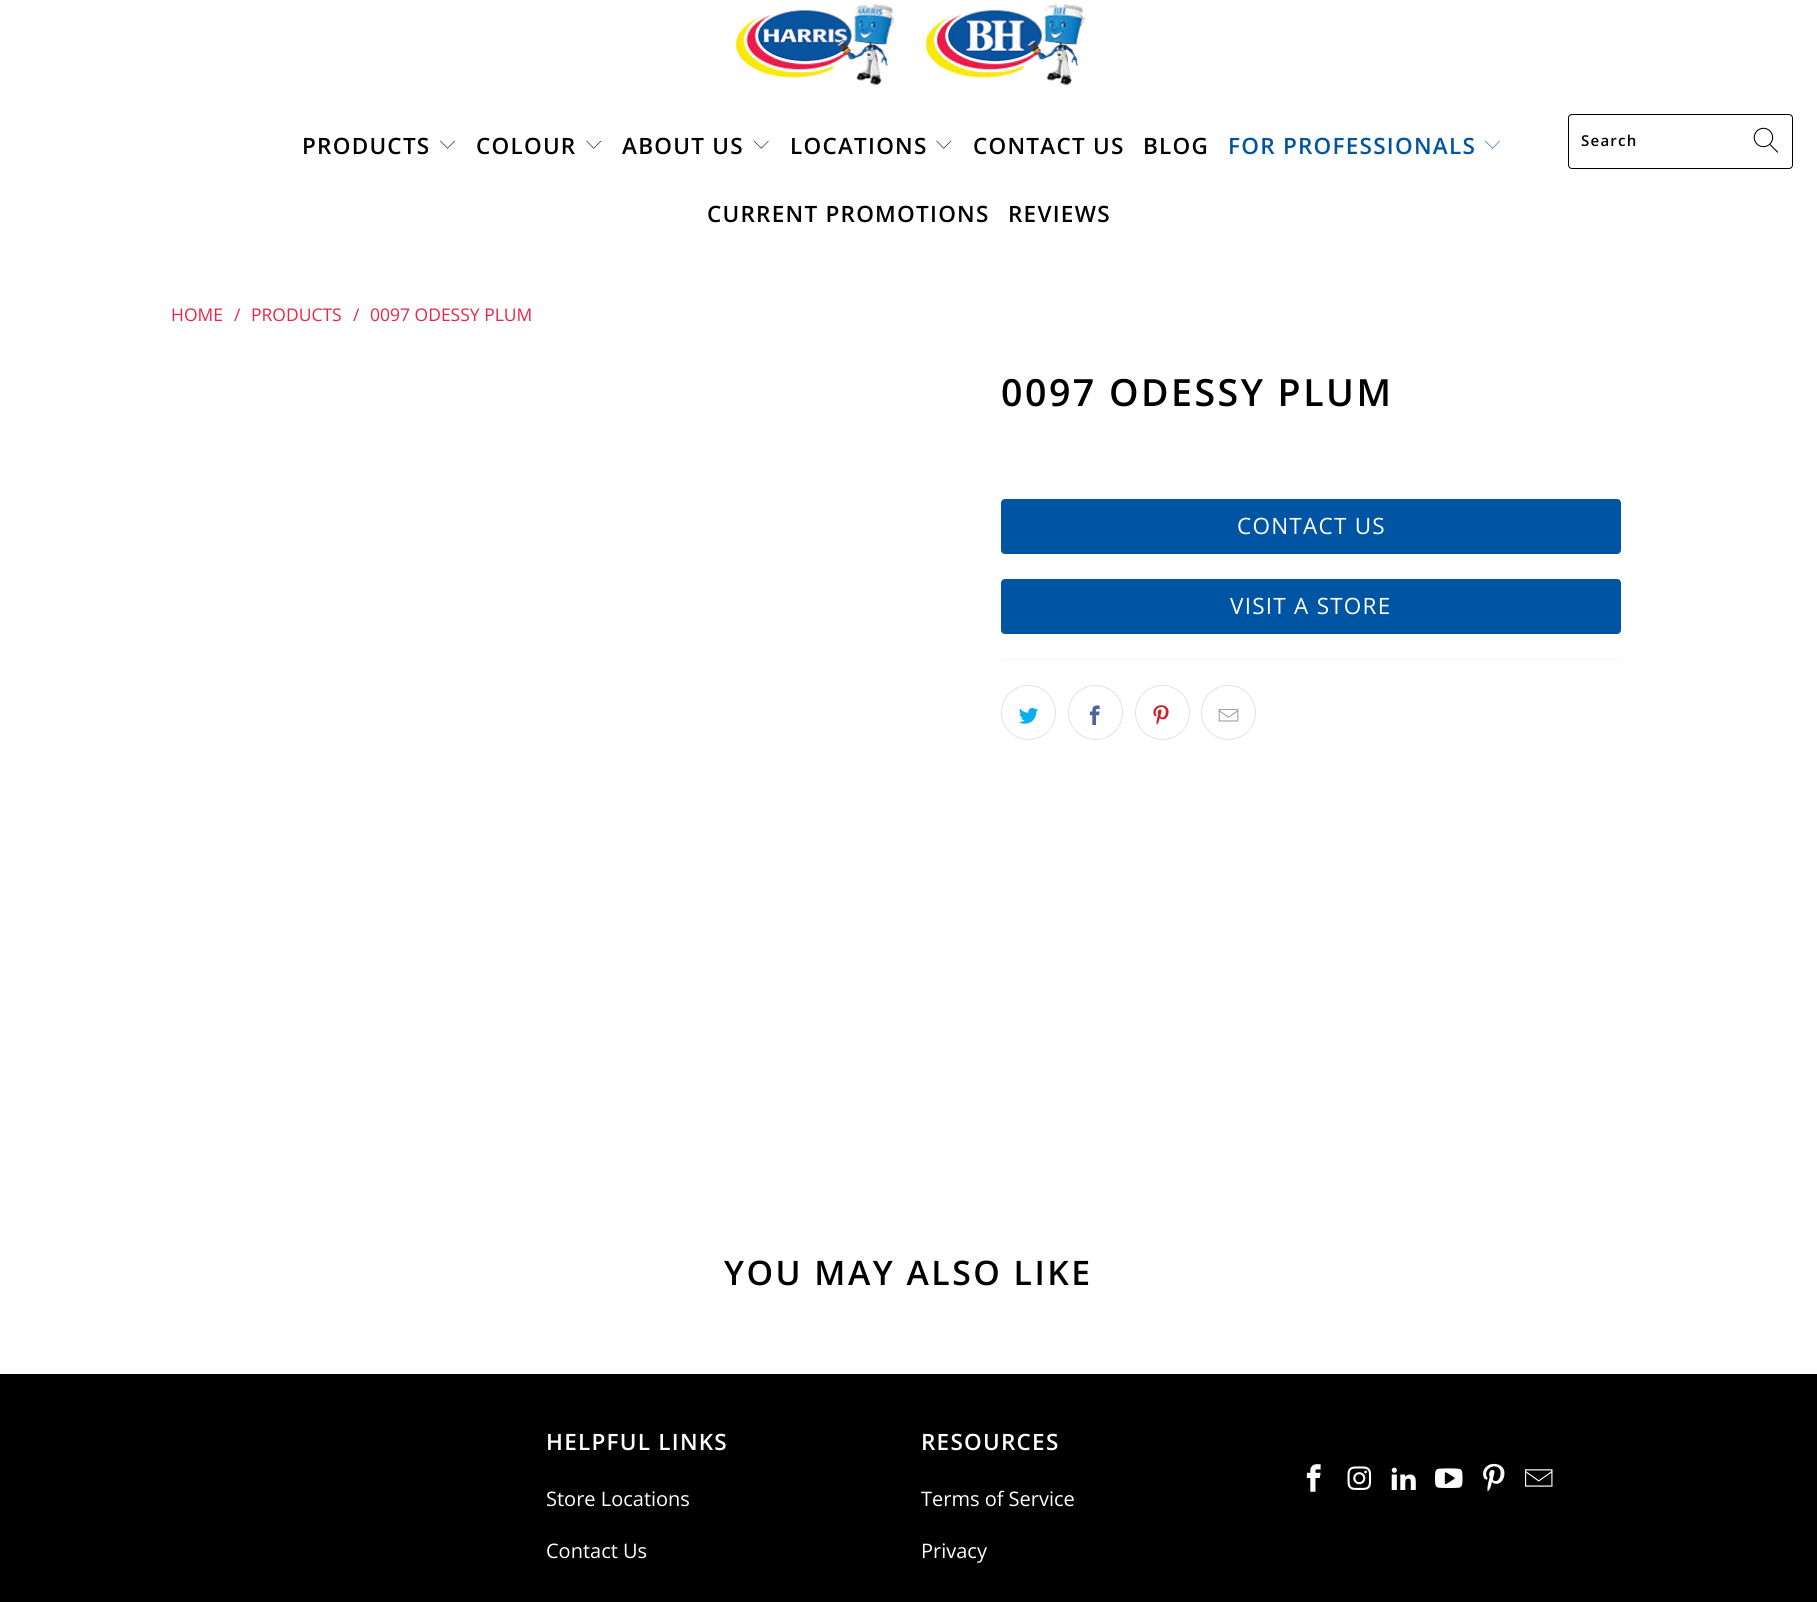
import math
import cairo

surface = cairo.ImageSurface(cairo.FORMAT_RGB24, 1817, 1602)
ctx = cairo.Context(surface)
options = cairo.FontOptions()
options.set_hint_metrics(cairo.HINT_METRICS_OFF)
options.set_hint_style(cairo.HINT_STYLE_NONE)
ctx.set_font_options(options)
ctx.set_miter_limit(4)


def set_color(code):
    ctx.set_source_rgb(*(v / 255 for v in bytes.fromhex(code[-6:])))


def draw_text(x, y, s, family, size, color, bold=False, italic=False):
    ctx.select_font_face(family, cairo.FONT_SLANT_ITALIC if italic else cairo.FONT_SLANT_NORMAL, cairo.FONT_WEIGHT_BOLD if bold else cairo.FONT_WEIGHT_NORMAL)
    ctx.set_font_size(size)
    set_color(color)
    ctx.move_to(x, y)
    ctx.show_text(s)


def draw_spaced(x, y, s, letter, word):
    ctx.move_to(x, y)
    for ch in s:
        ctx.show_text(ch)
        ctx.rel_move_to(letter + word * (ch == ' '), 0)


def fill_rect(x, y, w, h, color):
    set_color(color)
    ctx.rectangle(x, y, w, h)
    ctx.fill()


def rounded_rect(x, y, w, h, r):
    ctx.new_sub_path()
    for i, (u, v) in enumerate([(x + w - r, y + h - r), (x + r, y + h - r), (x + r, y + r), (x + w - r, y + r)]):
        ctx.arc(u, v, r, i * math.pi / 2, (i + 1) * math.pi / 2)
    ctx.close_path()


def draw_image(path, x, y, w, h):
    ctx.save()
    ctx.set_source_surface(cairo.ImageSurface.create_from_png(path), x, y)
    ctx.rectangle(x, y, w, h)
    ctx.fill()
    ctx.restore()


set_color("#ffffff")
ctx.paint()
draw_image("assets/img1.png", 735, 4, 350, 82)
ctx.select_font_face("Open Sans SemiBold")
ctx.set_font_size(22.5)
set_color("#000000")
draw_spaced(302, 154, "PRODUCTS", 1.25, 0)
draw_image("assets/img2.png", 440, 140, 15, 9)
draw_spaced(476, 154, "COLOUR", 1.25, 0)
draw_image("assets/img3.png", 586, 140, 16, 9)
draw_spaced(622, 154, "ABOUT US", 1.25, 0)
draw_image("assets/img4.png", 753, 140, 16, 9)
draw_spaced(790, 154, "LOCATIONS", 1.25, 0)
draw_image("assets/img3.png", 936, 140, 16, 9)
draw_spaced(973, 154, "CONTACT US", 1.25, 0)
draw_spaced(1143, 154, "BLOG", 1.25, 0)
set_color("#0054a4")
draw_spaced(1228, 154, "FOR PROFESSIONALS", 1.25, 0)
draw_image("assets/img5.png", 1485, 140, 15, 9)
set_color("#000000")
draw_spaced(707, 222, "CURRENT PROMOTIONS", 1.25, 0)
draw_spaced(1008, 222, "REVIEWS", 1.25, 0)
rounded_rect(1568.5, 114.5, 224, 54, 3.5)
ctx.set_line_width(1)
ctx.stroke()
ctx.set_font_size(15)
draw_spaced(1581, 146, "Search", 1.25, 0)
draw_image("assets/img6.png", 1753, 127, 26, 26)
draw_text(171, 321, "HOME", "Open Sans", 17.5, "#ea2448")
draw_text(234, 321, "/", "Open Sans", 17.5, "#ea2448")
draw_text(251, 321, "PRODUCTS", "Open Sans", 17.5, "#ea2448")
draw_text(353, 321, "/", "Open Sans", 17.5, "#ea2448")
draw_text(370, 321, "0097 ODESSY PLUM", "Open Sans", 17.5, "#ea2448")
ctx.select_font_face("Open Sans SemiBold")
ctx.set_font_size(37.5)
set_color("#000000")
draw_spaced(1001, 406, "0097 ODESSY PLUM", 2.5, 0)
set_color("#0054a4")
rounded_rect(1001.5, 499.5, 619, 54, 3.5)
ctx.fill_preserve()
ctx.stroke()
ctx.select_font_face("Open Sans")
ctx.set_font_size(22.5)
set_color("#ffffff")
draw_spaced(1237, 534, "CONTACT US", 1.25, 0)
set_color("#0054a4")
rounded_rect(1001.5, 579.5, 619, 54, 3.5)
ctx.fill_preserve()
ctx.stroke()
set_color("#ffffff")
draw_spaced(1230, 614, "VISIT A STORE", 1.25, 0)
fill_rect(1001, 659, 620, 1, "#f5f5f5")
ctx.new_path()
ctx.arc(1028.5, 712.5, 27, 0, 2 * math.pi)
set_color("#e2e2e2")
ctx.stroke()
draw_image("assets/img7.png", 1019, 707, 20, 17)
ctx.arc(1095.5, 712.5, 27, 0, 2 * math.pi)
ctx.stroke()
draw_image("assets/img8.png", 1089, 705, 11, 20)
ctx.arc(1162.5, 712.5, 27, 0, 2 * math.pi)
ctx.stroke()
draw_image("assets/img9.png", 1153, 705, 16, 20)
ctx.arc(1228.5, 712.5, 27, 0, 2 * math.pi)
ctx.stroke()
draw_image("assets/img10.png", 1218, 709, 21, 13)
ctx.select_font_face("Open Sans SemiBold")
ctx.set_font_size(33.75)
set_color("#000000")
draw_spaced(724, 1285, "YOU MAY ALSO LIKE", 2.5, 0)
fill_rect(0, 1374, 1817, 228, "#000000")
ctx.set_font_size(22.5)
set_color("#ffffff")
draw_spaced(546, 1450, "HELPFUL LINKS", 1.25, 0)
draw_text(546, 1506, "Store Locations", "Open Sans", 20, "#ffffff")
draw_text(546, 1558, "Contact Us", "Open Sans", 20, "#ffffff")
ctx.select_font_face("Open Sans SemiBold")
ctx.set_font_size(22.5)
draw_spaced(921, 1450, "RESOURCES", 1.25, 0)
draw_text(921, 1506, "Terms of Service", "Open Sans", 20, "#ffffff")
draw_text(921, 1558, "Privacy", "Open Sans", 20, "#ffffff")
draw_image("assets/img11.png", 1306, 1464, 15, 28)
draw_image("assets/img12.png", 1347, 1466, 25, 24)
draw_image("assets/img13.png", 1391, 1467, 25, 23)
draw_image("assets/img14.png", 1435, 1468, 28, 21)
draw_image("assets/img15.png", 1483, 1463, 22, 29)
draw_image("assets/img16.png", 1525, 1469, 28, 18)
surface.write_to_png("output.png")
